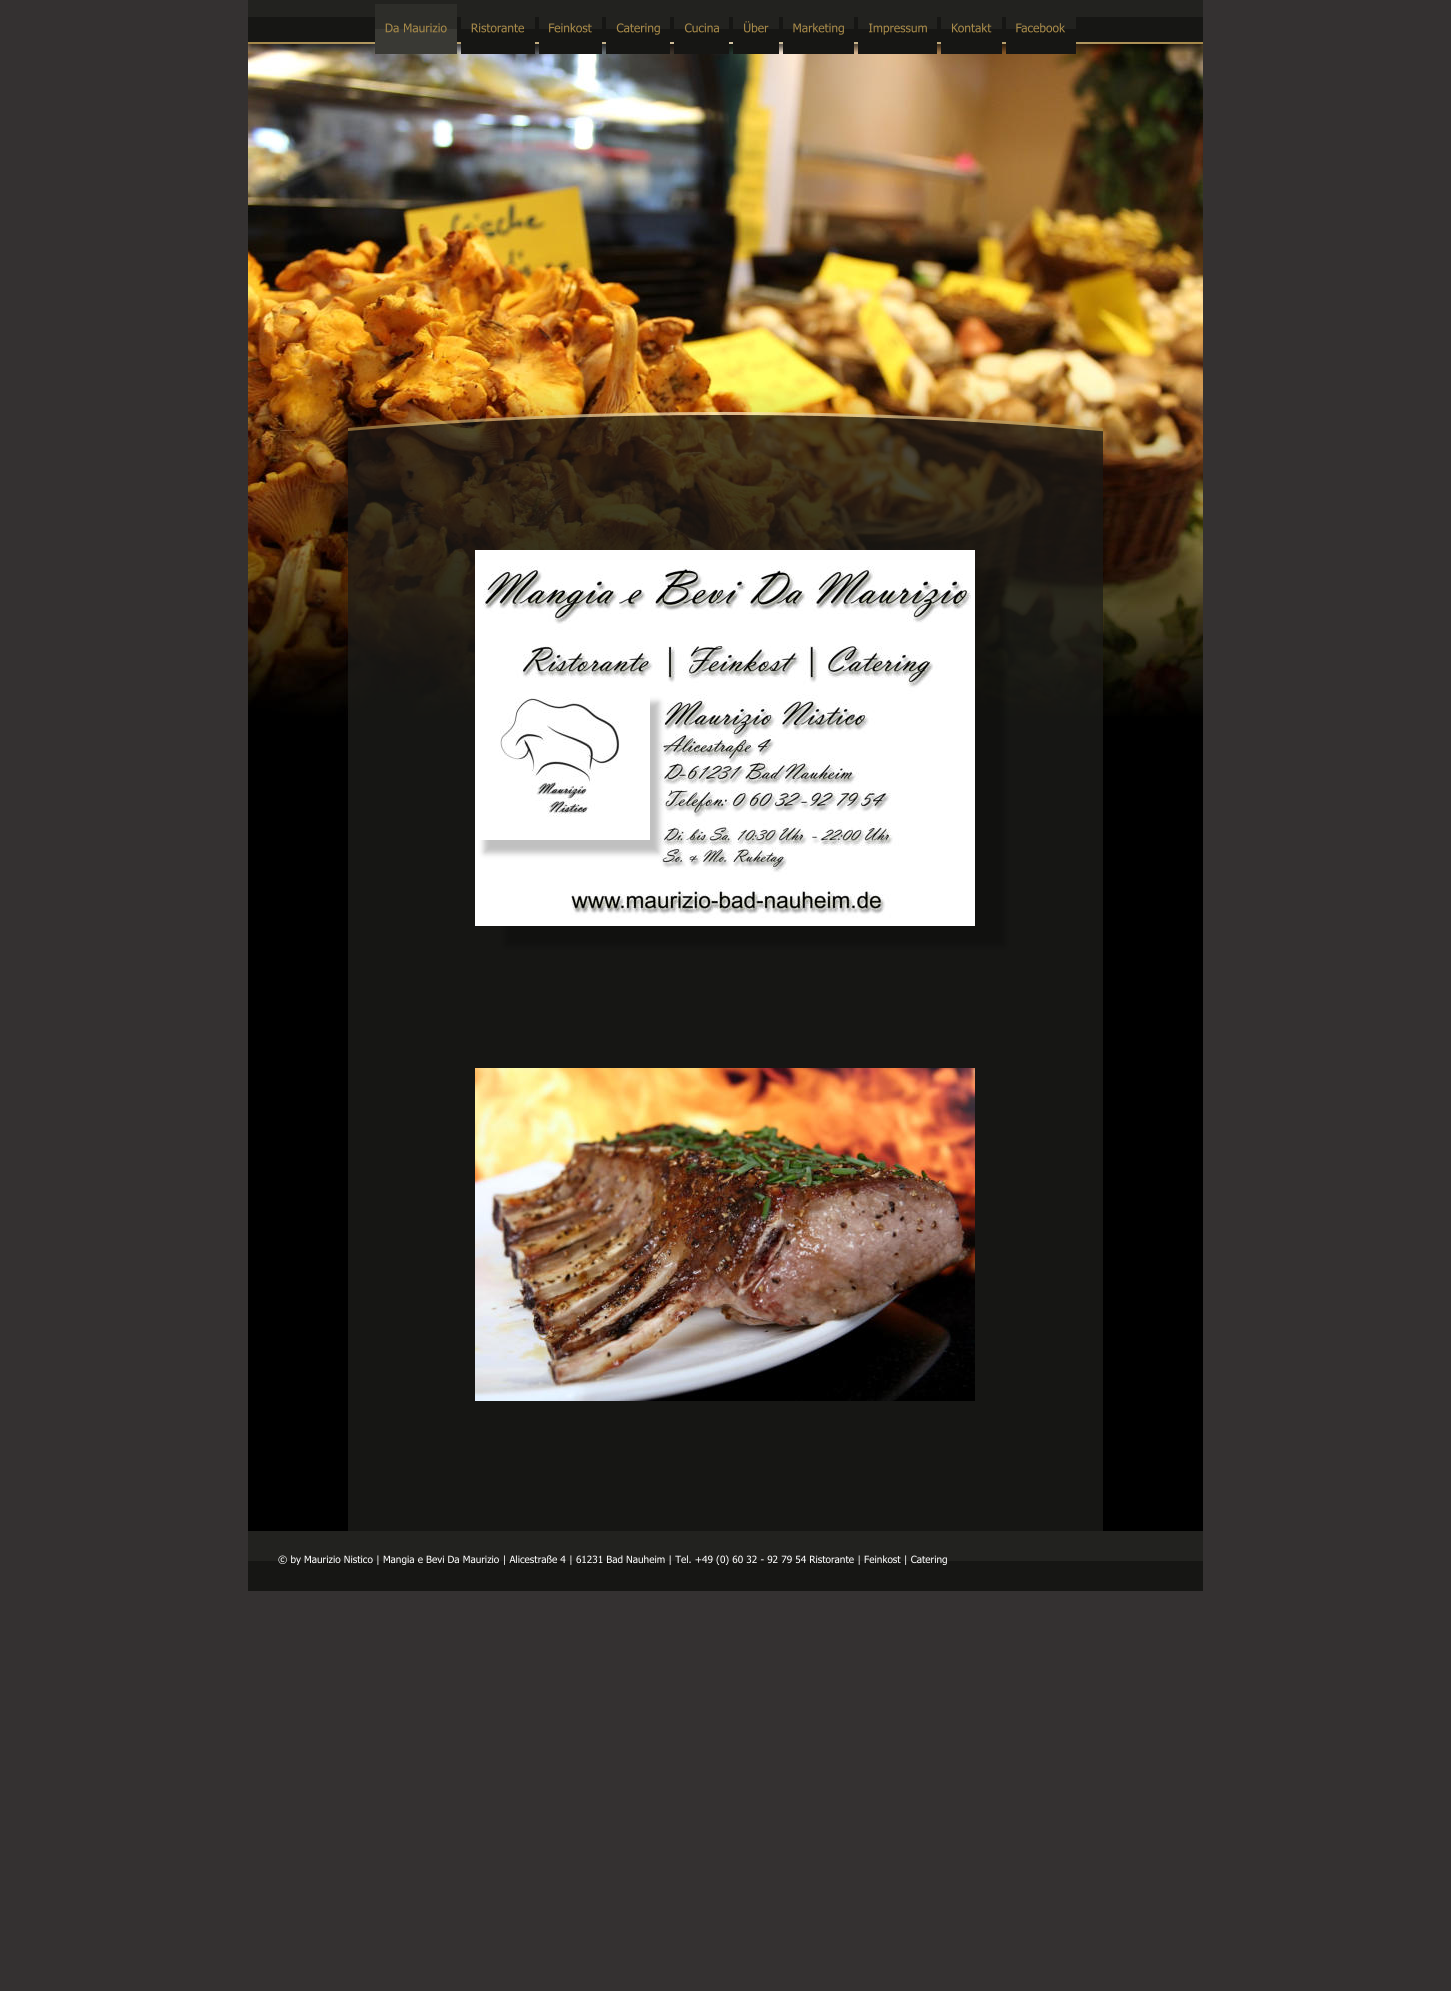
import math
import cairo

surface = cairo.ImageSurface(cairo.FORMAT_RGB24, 1451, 1991)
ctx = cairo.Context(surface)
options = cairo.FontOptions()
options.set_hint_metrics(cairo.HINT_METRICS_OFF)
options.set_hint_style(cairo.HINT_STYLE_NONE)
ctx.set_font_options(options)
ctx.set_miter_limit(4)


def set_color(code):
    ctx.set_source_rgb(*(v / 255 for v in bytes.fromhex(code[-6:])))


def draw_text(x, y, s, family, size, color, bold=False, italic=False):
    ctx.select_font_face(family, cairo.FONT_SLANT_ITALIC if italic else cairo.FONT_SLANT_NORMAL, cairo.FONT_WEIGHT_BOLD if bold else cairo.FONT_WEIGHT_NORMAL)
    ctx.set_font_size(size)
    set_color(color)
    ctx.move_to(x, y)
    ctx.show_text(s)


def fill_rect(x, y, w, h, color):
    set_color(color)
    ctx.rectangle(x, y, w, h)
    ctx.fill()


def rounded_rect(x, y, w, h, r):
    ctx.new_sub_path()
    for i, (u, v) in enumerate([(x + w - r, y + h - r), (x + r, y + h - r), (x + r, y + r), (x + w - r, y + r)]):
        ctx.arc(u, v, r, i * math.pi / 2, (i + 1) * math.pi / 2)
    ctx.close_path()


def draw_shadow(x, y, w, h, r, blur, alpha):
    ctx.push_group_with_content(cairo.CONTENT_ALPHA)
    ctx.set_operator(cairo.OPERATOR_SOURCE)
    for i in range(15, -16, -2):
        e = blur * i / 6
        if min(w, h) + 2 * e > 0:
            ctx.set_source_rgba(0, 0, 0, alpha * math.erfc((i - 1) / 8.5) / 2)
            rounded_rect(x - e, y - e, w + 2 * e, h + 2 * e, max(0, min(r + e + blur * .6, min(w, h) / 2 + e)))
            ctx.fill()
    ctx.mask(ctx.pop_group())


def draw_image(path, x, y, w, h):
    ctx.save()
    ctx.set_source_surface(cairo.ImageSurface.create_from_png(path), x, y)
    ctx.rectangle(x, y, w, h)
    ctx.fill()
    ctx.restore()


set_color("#343131")
ctx.paint()
draw_image("assets/img12.png", 248, 44, 955, 676)
draw_image("assets/img11.png", 248, 0, 955, 53)
draw_image("assets/img1.png", 375, 4, 82, 50)
draw_image("assets/img2.png", 461, 17, 74, 37)
draw_image("assets/img3.png", 539, 17, 63, 37)
draw_image("assets/img4.png", 606, 17, 64, 37)
draw_image("assets/img5.png", 674, 17, 55, 37)
draw_image("assets/img6.png", 733, 17, 46, 37)
draw_image("assets/img7.png", 783, 17, 71, 37)
draw_image("assets/img8.png", 858, 17, 79, 37)
draw_image("assets/img9.png", 941, 17, 61, 37)
draw_image("assets/img10.png", 1006, 17, 70, 37)
fill_rect(248, 720, 955, 811, "#000000")
fill_rect(348, 720, 755, 811, "#161614")
draw_image("assets/img13.png", 348, 412, 755, 308)
set_color("#000000")
draw_shadow(505, 570, 500, 376, 0, 3, 0.25)
draw_image("assets/img14.png", 475, 550, 500, 376)
ctx.save()
ctx.set_fill_rule(cairo.FILL_RULE_EVEN_ODD)
ctx.new_path()
ctx.move_to(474, 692)
ctx.line_to(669, 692)
ctx.line_to(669, 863)
ctx.line_to(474, 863)
ctx.close_path()
ctx.move_to(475, 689)
ctx.line_to(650, 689)
ctx.line_to(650, 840)
ctx.line_to(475, 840)
ctx.close_path()
ctx.clip()
draw_shadow(484, 702, 175, 151, 0, 3, 0.25)
ctx.restore()
draw_image("assets/img15.png", 499, 697, 121, 120)
draw_image("assets/img16.png", 475, 1068, 500, 333)
draw_image("assets/img17.png", 248, 1531, 955, 60)
draw_text(278, 1563, "© by Maurizio Nistico | Mangia e Bevi Da Maurizio | Alicestraße 4 | 61231 Bad Nauheim | Tel. +49 (0) 60 32 - 92 79 54 Ristorante | Feinkost | Catering", "Tahoma", 10, "#ffffff")
surface.write_to_png("output.png")
